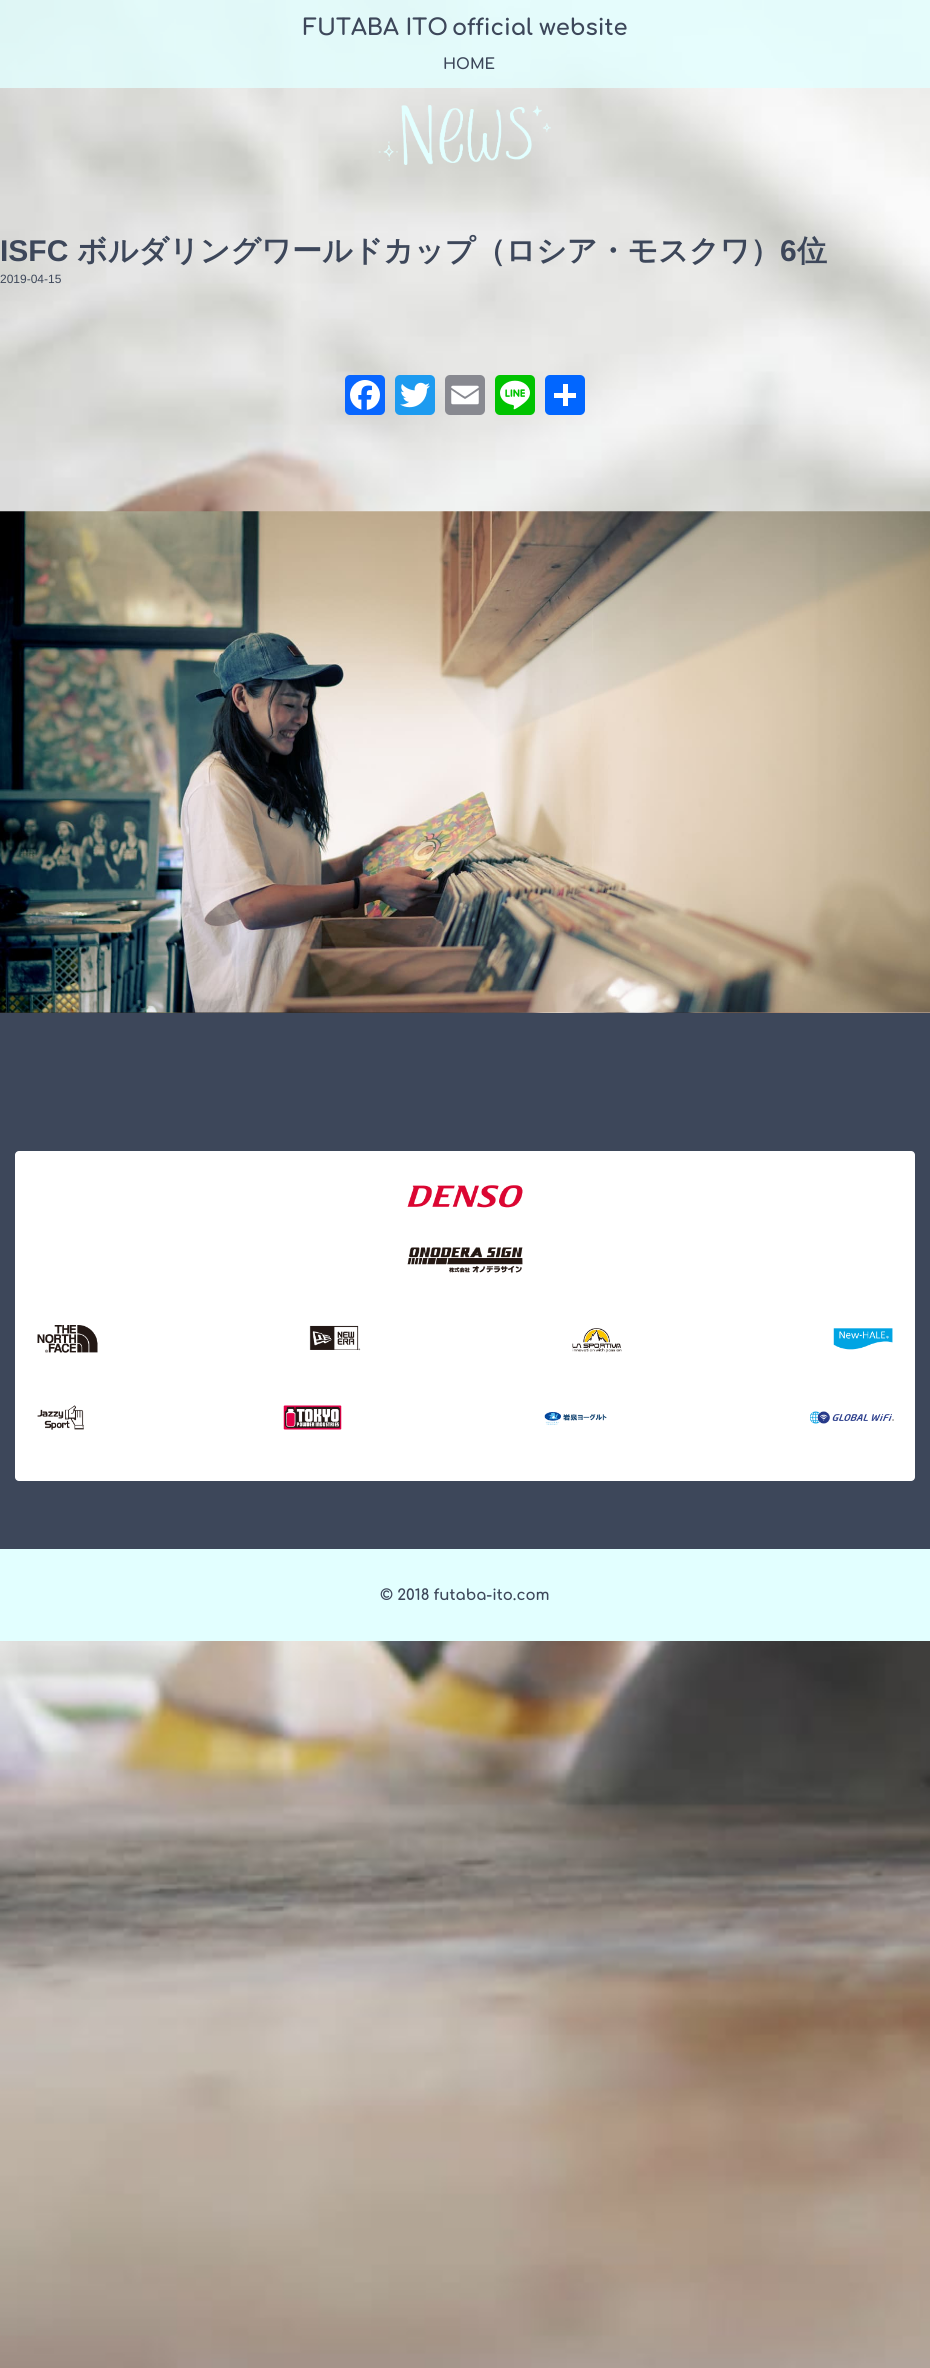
import math
import cairo

surface = cairo.ImageSurface(cairo.FORMAT_RGB24, 930, 2368)
ctx = cairo.Context(surface)
options = cairo.FontOptions()
options.set_hint_metrics(cairo.HINT_METRICS_OFF)
options.set_hint_style(cairo.HINT_STYLE_NONE)
ctx.set_font_options(options)
ctx.set_miter_limit(4)


def set_color(code):
    ctx.set_source_rgb(*(v / 255 for v in bytes.fromhex(code[-6:])))


def draw_text(x, y, s, family, size, color, bold=False, italic=False):
    ctx.select_font_face(family, cairo.FONT_SLANT_ITALIC if italic else cairo.FONT_SLANT_NORMAL, cairo.FONT_WEIGHT_BOLD if bold else cairo.FONT_WEIGHT_NORMAL)
    ctx.set_font_size(size)
    set_color(color)
    ctx.move_to(x, y)
    ctx.show_text(s)


def fill_rect(x, y, w, h, color):
    set_color(color)
    ctx.rectangle(x, y, w, h)
    ctx.fill()


def rounded_rect(x, y, w, h, r):
    ctx.new_sub_path()
    for i, (u, v) in enumerate([(x + w - r, y + h - r), (x + r, y + h - r), (x + r, y + r), (x + w - r, y + r)]):
        ctx.arc(u, v, r, i * math.pi / 2, (i + 1) * math.pi / 2)
    ctx.close_path()


def draw_image(path, x, y, w, h):
    ctx.save()
    ctx.set_source_surface(cairo.ImageSurface.create_from_png(path), x, y)
    ctx.rectangle(x, y, w, h)
    ctx.fill()
    ctx.restore()


set_color("#ffffff")
ctx.paint()
draw_image("assets/img1.png", 0, 0, 930, 2368)
ctx.set_source_rgba(0.886, 1, 1, 0.8)
ctx.rectangle(0, 0, 930, 88)
ctx.fill()
draw_text(303, 35, "FUTABA ITO", "Comfortaa", 22.5, "#3d475a", bold=True)
draw_text(452, 35, "official website", "Comfortaa", 22.5, "#3d475a", bold=True)
draw_text(443, 69, "HOME", "Comfortaa", 15, "#3d475a", bold=True)
draw_image("assets/img2.png", 378, 105, 173, 60)
draw_text(0, 261, "ISFC", "Liberation Sans", 30, "#3d475a", bold=True)
draw_text(77, 261, "ボルダリングワールドカップ（ロシア・モスクワ）", "WenQuanYi Zen Hei", 30, "#3d475a", bold=True)
draw_text(780, 261, "6", "Liberation Sans", 30, "#3d475a", bold=True)
draw_text(797, 261, "位", "WenQuanYi Zen Hei", 30, "#3d475a", bold=True)
draw_text(0, 283, "2019-04-15", "Liberation Sans", 12, "#3d475a")
set_color("#0866ff")
rounded_rect(345, 375, 40, 40, 5)
ctx.fill()
draw_image("assets/img3.png", 350, 380, 30, 30)
set_color("#1d9bf0")
rounded_rect(395, 375, 40, 40, 5)
ctx.fill()
draw_image("assets/img4.png", 400, 382, 30, 26)
set_color("#888990")
rounded_rect(445, 375, 40, 40, 5)
ctx.fill()
draw_image("assets/img5.png", 451, 385, 28, 20)
set_color("#00c300")
rounded_rect(495, 375, 40, 40, 5)
ctx.fill()
draw_image("assets/img6.png", 500, 380, 30, 30)
set_color("#0166ff")
rounded_rect(545, 375, 40, 40, 5)
ctx.fill()
fill_rect(563, 384, 5, 22, "#ffffff")
fill_rect(554, 393, 22, 5, "#ffffff")
draw_image("assets/img7.png", 0, 511, 930, 502)
fill_rect(0, 1013, 930, 536, "#3d475a")
set_color("#ffffff")
rounded_rect(15, 1151, 900, 330, 4)
ctx.fill()
draw_image("assets/img8.png", 407, 1185, 116, 23)
draw_image("assets/img9.png", 407, 1247, 116, 26)
draw_image("assets/img10.png", 37, 1325, 61, 28)
draw_image("assets/img11.png", 309, 1325, 52, 26)
draw_image("assets/img12.png", 572, 1328, 50, 25)
draw_image("assets/img13.png", 833, 1328, 60, 22)
draw_image("assets/img14.png", 37, 1405, 47, 25)
draw_image("assets/img15.png", 283, 1405, 59, 25)
draw_image("assets/img16.png", 544, 1412, 63, 13)
draw_image("assets/img17.png", 810, 1411, 84, 13)
fill_rect(0, 1549, 930, 92, "#e2ffff")
draw_text(380, 1600, "© 2018 futaba-ito.com", "Comfortaa", 15, "#3d475a", bold=True)
surface.write_to_png("output.png")
